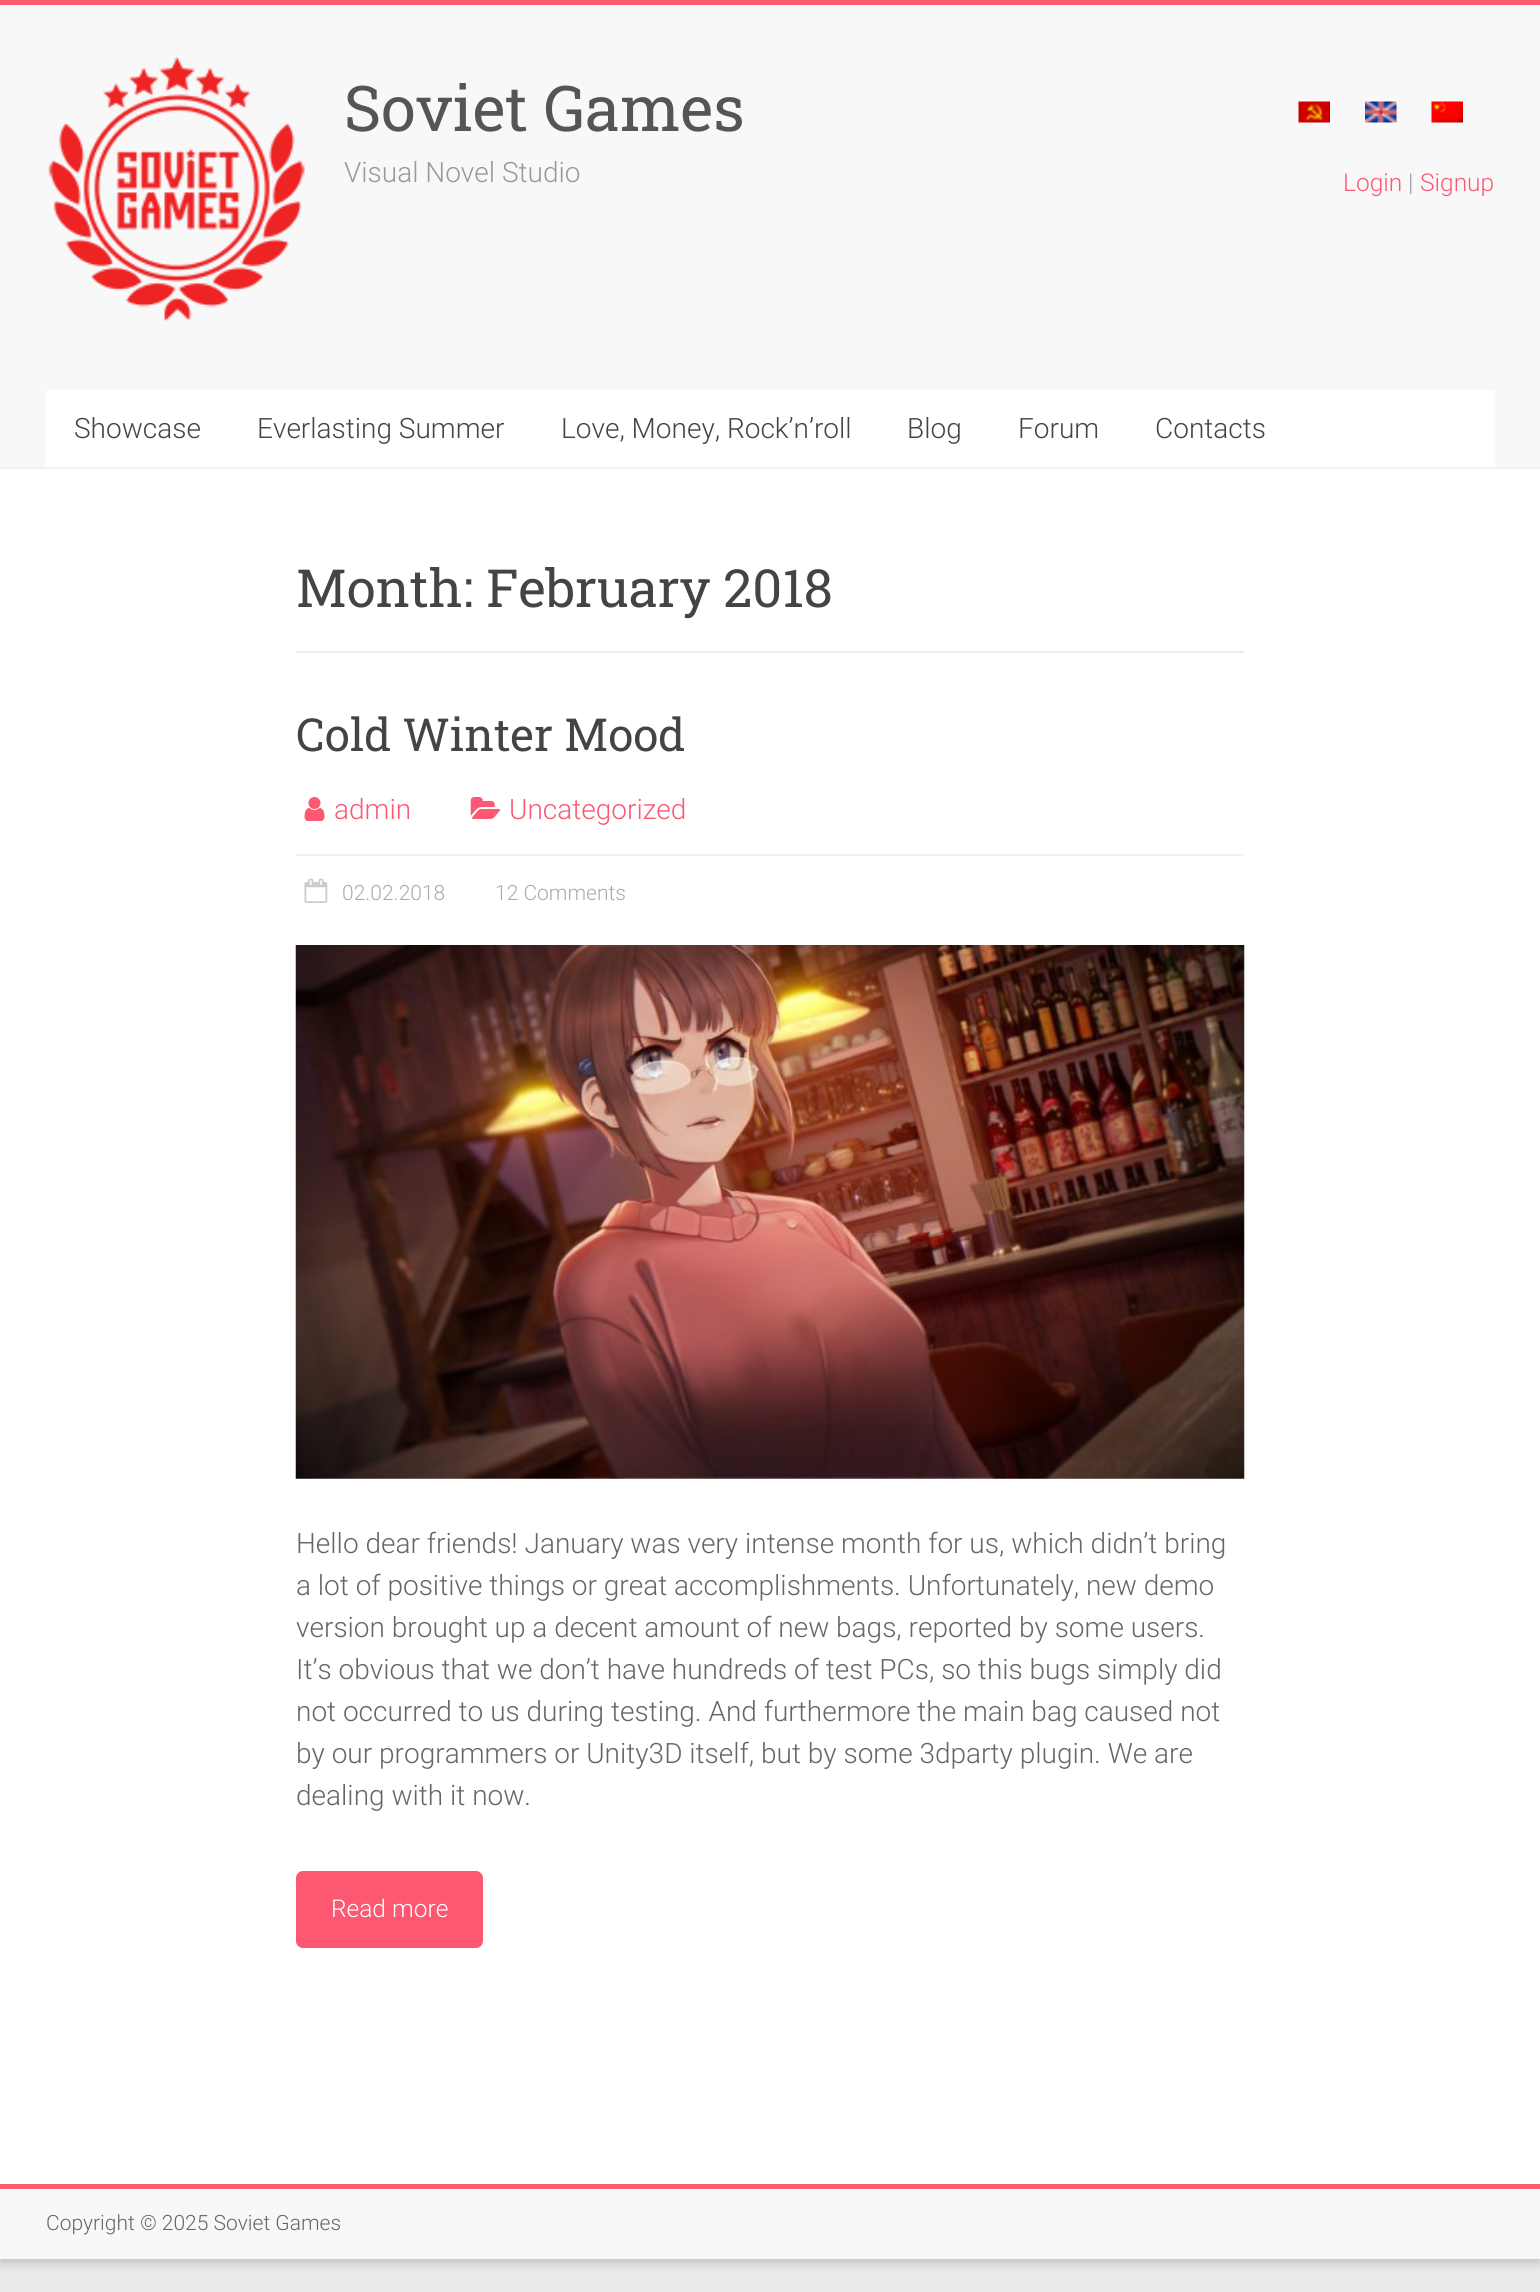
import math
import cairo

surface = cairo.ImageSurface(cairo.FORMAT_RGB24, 1540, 2292)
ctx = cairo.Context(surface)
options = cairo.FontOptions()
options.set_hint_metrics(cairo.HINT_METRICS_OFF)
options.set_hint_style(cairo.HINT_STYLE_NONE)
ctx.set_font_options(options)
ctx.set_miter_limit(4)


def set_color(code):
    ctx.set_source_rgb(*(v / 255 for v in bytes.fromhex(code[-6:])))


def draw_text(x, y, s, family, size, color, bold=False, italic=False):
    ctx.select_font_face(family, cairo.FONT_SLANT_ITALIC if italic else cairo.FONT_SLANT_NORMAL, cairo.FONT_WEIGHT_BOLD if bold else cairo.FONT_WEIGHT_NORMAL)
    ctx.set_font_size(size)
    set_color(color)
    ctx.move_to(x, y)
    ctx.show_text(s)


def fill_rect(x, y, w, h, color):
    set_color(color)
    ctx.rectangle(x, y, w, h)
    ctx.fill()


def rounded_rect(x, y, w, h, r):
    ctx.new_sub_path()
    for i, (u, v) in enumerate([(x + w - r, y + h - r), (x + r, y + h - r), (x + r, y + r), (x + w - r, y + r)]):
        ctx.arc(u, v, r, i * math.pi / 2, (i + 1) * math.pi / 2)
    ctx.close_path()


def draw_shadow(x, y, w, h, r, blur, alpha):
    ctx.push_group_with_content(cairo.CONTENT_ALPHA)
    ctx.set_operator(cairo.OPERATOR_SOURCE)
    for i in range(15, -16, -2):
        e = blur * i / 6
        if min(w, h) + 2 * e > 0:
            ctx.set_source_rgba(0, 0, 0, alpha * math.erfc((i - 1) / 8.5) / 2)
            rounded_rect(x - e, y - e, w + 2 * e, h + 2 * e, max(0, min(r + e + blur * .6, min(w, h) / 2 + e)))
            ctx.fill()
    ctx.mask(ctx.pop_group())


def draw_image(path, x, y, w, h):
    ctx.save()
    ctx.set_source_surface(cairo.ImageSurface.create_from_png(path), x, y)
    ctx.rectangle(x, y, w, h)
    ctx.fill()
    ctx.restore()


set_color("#eaeaea")
ctx.paint()
set_color("#646464")
draw_shadow(0, 4, 1540, 2259, 0, 5, 0.3)
fill_rect(0, 469, 1540, 1715, "#ffffff")
fill_rect(0, 0, 1540, 5, "#fc5871")
fill_rect(0, 5, 1540, 462, "#f8f8f8")
fill_rect(0, 467, 1540, 2, "#f2f2f2")
draw_image("assets/img1.png", 48, 57, 257, 264)
draw_text(344, 131, "Soviet Games", "Roboto Slab", 63, "#555555")
draw_text(344, 182, "Visual Novel Studio", "Roboto Light", 28, "#999999")
draw_image("assets/img2.png", 1298, 101, 32, 22)
draw_image("assets/img3.png", 1365, 101, 32, 22)
draw_image("assets/img4.png", 1431, 101, 32, 22)
draw_text(1343, 191, "Login", "Roboto Light", 24.5, "#fc5871")
draw_text(1408, 191, "|", "Roboto Light", 24.5, "#999999")
draw_text(1420, 191, "Signup", "Roboto Light", 24.5, "#fc5871")
fill_rect(46, 390, 1449, 77, "#ffffff")
draw_text(74, 438, "Showcase", "Roboto Light", 28, "#444444")
draw_text(257, 438, "Everlasting Summer", "Roboto Light", 28, "#444444")
draw_text(561, 438, "Love, Money, Rock’n’roll", "Roboto Light", 28, "#444444")
draw_text(907, 438, "Blog", "Roboto Light", 28, "#444444")
draw_text(1018, 438, "Forum", "Roboto Light", 28, "#444444")
draw_text(1155, 438, "Contacts", "Roboto Light", 28, "#444444")
fill_rect(296, 651, 948, 2, "#ececec")
draw_text(296, 607, "Month: February 2018", "Roboto Slab", 52.5, "#444444")
draw_text(296, 751, "Cold Winter Mood", "Roboto Slab", 45.5, "#444444")
draw_image("assets/img5.png", 304, 797, 21, 24)
draw_text(334, 819, "admin", "Roboto Light", 28, "#fc5871")
draw_image("assets/img6.png", 470, 797, 31, 22)
draw_text(509, 819, "Uncategorized", "Roboto Light", 28, "#fc5871")
fill_rect(296, 854, 948, 2, "#f2f2f2")
draw_image("assets/img7.png", 304, 878, 24, 25)
draw_text(342, 900, "02.02.2018", "Roboto Light", 21, "#aaaaaa")
draw_text(495, 900, "12 Comments", "Roboto Light", 21, "#aaaaaa")
draw_image("assets/img8.png", 295, 945, 950, 534)
draw_text(296, 1553, "Hello dear friends! January was very intense month for us, which didn’t bring", "Roboto Light", 28, "#666666")
draw_text(296, 1595, "a lot of positive things or great accomplishments. Unfortunately, new demo", "Roboto Light", 28, "#666666")
draw_text(296, 1637, "version brought up a decent amount of new bags, reported by some users.", "Roboto Light", 28, "#666666")
draw_text(296, 1679, "It’s obvious that we don’t have hundreds of test PCs, so this bugs simply did", "Roboto Light", 28, "#666666")
draw_text(296, 1721, "not occurred to us during testing. And furthermore the main bag caused not", "Roboto Light", 28, "#666666")
draw_text(296, 1763, "by our programmers or Unity3D itself, but by some 3dparty plugin. We are", "Roboto Light", 28, "#666666")
draw_text(296, 1805, "dealing with it now.", "Roboto Light", 28, "#666666")
set_color("#fc5871")
rounded_rect(296, 1871, 187, 77, 7)
ctx.fill()
draw_text(331, 1917, "Read more", "Roboto Light", 24.5, "#ffffff")
fill_rect(0, 2189, 1540, 70, "#f8f8f8")
fill_rect(0, 2184, 1540, 5, "#fc5871")
draw_text(46, 2230, "Copyright © 2025 Soviet Games", "Roboto Light", 21, "#666666")
surface.write_to_png("output.png")
